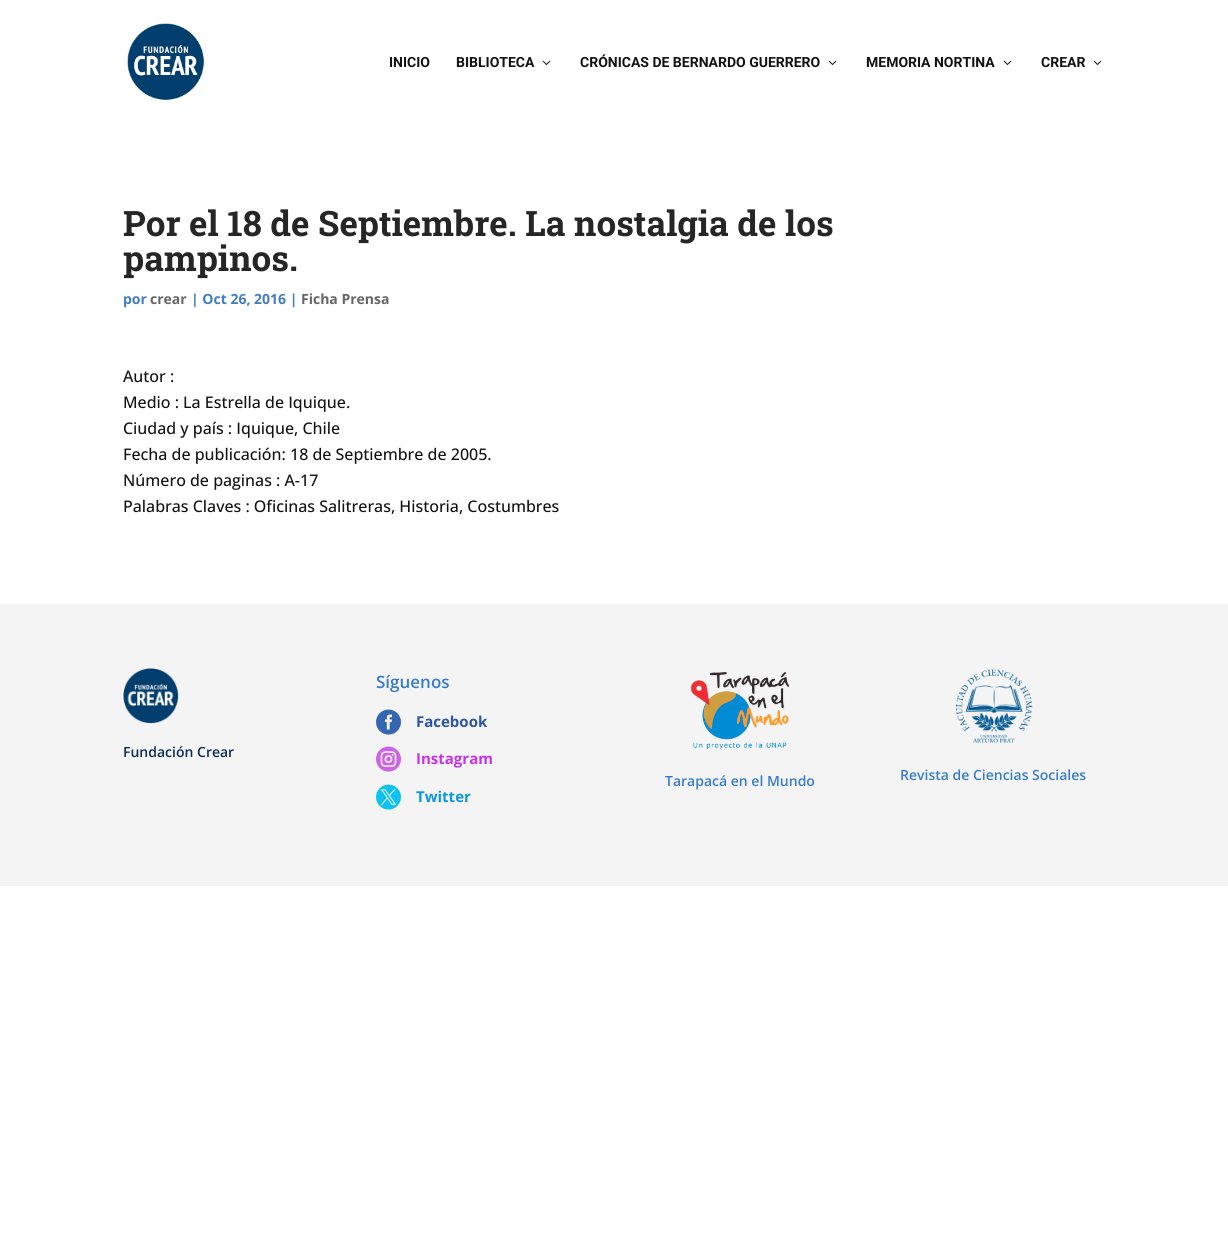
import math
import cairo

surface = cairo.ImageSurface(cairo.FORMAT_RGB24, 1228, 1242)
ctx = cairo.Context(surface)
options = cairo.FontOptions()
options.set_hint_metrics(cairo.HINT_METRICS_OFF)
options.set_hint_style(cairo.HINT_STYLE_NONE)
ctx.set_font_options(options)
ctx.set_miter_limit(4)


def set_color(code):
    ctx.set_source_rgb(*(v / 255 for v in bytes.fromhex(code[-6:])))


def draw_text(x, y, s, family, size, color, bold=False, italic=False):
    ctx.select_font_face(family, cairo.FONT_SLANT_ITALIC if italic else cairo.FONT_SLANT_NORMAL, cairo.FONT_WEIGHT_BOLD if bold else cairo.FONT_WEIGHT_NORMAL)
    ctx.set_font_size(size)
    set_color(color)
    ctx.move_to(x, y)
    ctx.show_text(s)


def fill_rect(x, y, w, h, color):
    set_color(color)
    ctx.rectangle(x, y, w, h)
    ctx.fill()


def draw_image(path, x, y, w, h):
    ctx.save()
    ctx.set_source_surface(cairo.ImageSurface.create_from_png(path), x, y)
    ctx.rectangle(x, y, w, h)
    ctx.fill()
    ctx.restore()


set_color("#ffffff")
ctx.paint()
draw_image("assets/img1.png", 127, 23, 77, 77)
draw_text(389, 67, "INICIO", "Roboto", 14, "#121212", bold=True)
draw_text(456, 67, "BIBLIOTECA", "Roboto", 14, "#121212", bold=True)
draw_image("assets/img2.png", 542, 60, 9, 5)
draw_text(580, 67, "CRÓNICAS DE BERNARDO GUERRERO", "Roboto", 14, "#121212", bold=True)
draw_image("assets/img2.png", 828, 60, 9, 5)
draw_text(866, 67, "MEMORIA NORTINA", "Roboto", 14, "#121212", bold=True)
draw_image("assets/img2.png", 1003, 60, 9, 5)
draw_text(1041, 67, "CREAR", "Roboto", 14, "#121212", bold=True)
draw_image("assets/img2.png", 1093, 60, 9, 5)
draw_text(123, 236, "Por el 18 de Septiembre. La nostalgia de los", "Roboto Slab", 35, "#262626", bold=True)
draw_text(123, 271, "pampinos.", "Roboto Slab", 35, "#262626", bold=True)
draw_text(123, 304, "por", "Open Sans", 14, "#437cc0", bold=True)
draw_text(150, 304, "crear", "Open Sans", 14, "#666666", bold=True)
draw_text(191, 304, "| Oct 26, 2016 |", "Open Sans", 14, "#437cc0", bold=True)
draw_text(301, 304, "Ficha Prensa", "Open Sans", 14, "#666666", bold=True)
draw_text(123, 382, "Autor :", "Open Sans Medium", 16, "#121212")
draw_text(123, 408, "Medio : La Estrella de Iquique.", "Open Sans Medium", 16, "#121212")
draw_text(123, 434, "Ciudad y país : Iquique, Chile", "Open Sans Medium", 16, "#121212")
draw_text(123, 460, "Fecha de publicación: 18 de Septiembre de 2005.", "Open Sans Medium", 16, "#121212")
draw_text(123, 486, "Número de paginas : A-17", "Open Sans Medium", 16, "#121212")
draw_text(123, 512, "Palabras Claves : Oficinas Salitreras, Historia, Costumbres", "Open Sans Medium", 16, "#121212")
fill_rect(0, 604, 1228, 282, "#f4f4f4")
draw_image("assets/img3.png", 123, 668, 56, 56)
draw_text(123, 757, "Fundación Crear", "Open Sans SemiBold", 14, "#0d2c59")
draw_text(376, 688, "Síguenos", "Open Sans SemiBold", 17, "#377ccc")
draw_image("assets/img4.png", 376, 709, 25, 26)
draw_text(416, 727, "Facebook", "Open Sans", 15, "#2d54a5", bold=True)
draw_image("assets/img5.png", 376, 746, 25, 26)
draw_text(416, 764, "Instagram", "Open Sans", 15, "#c534e5", bold=True)
draw_image("assets/img6.png", 376, 784, 25, 26)
draw_text(416, 802, "Twitter", "Open Sans", 15, "#0d98dd", bold=True)
draw_image("assets/img7.png", 691, 672, 99, 77)
draw_text(665, 786, "Tarapacá en el Mundo", "Open Sans SemiBold", 14, "#377ccc")
draw_image("assets/img8.png", 956, 669, 77, 74)
draw_text(900, 780, "Revista de Ciencias Sociales", "Open Sans SemiBold", 14, "#377ccc")
surface.write_to_png("output.png")
